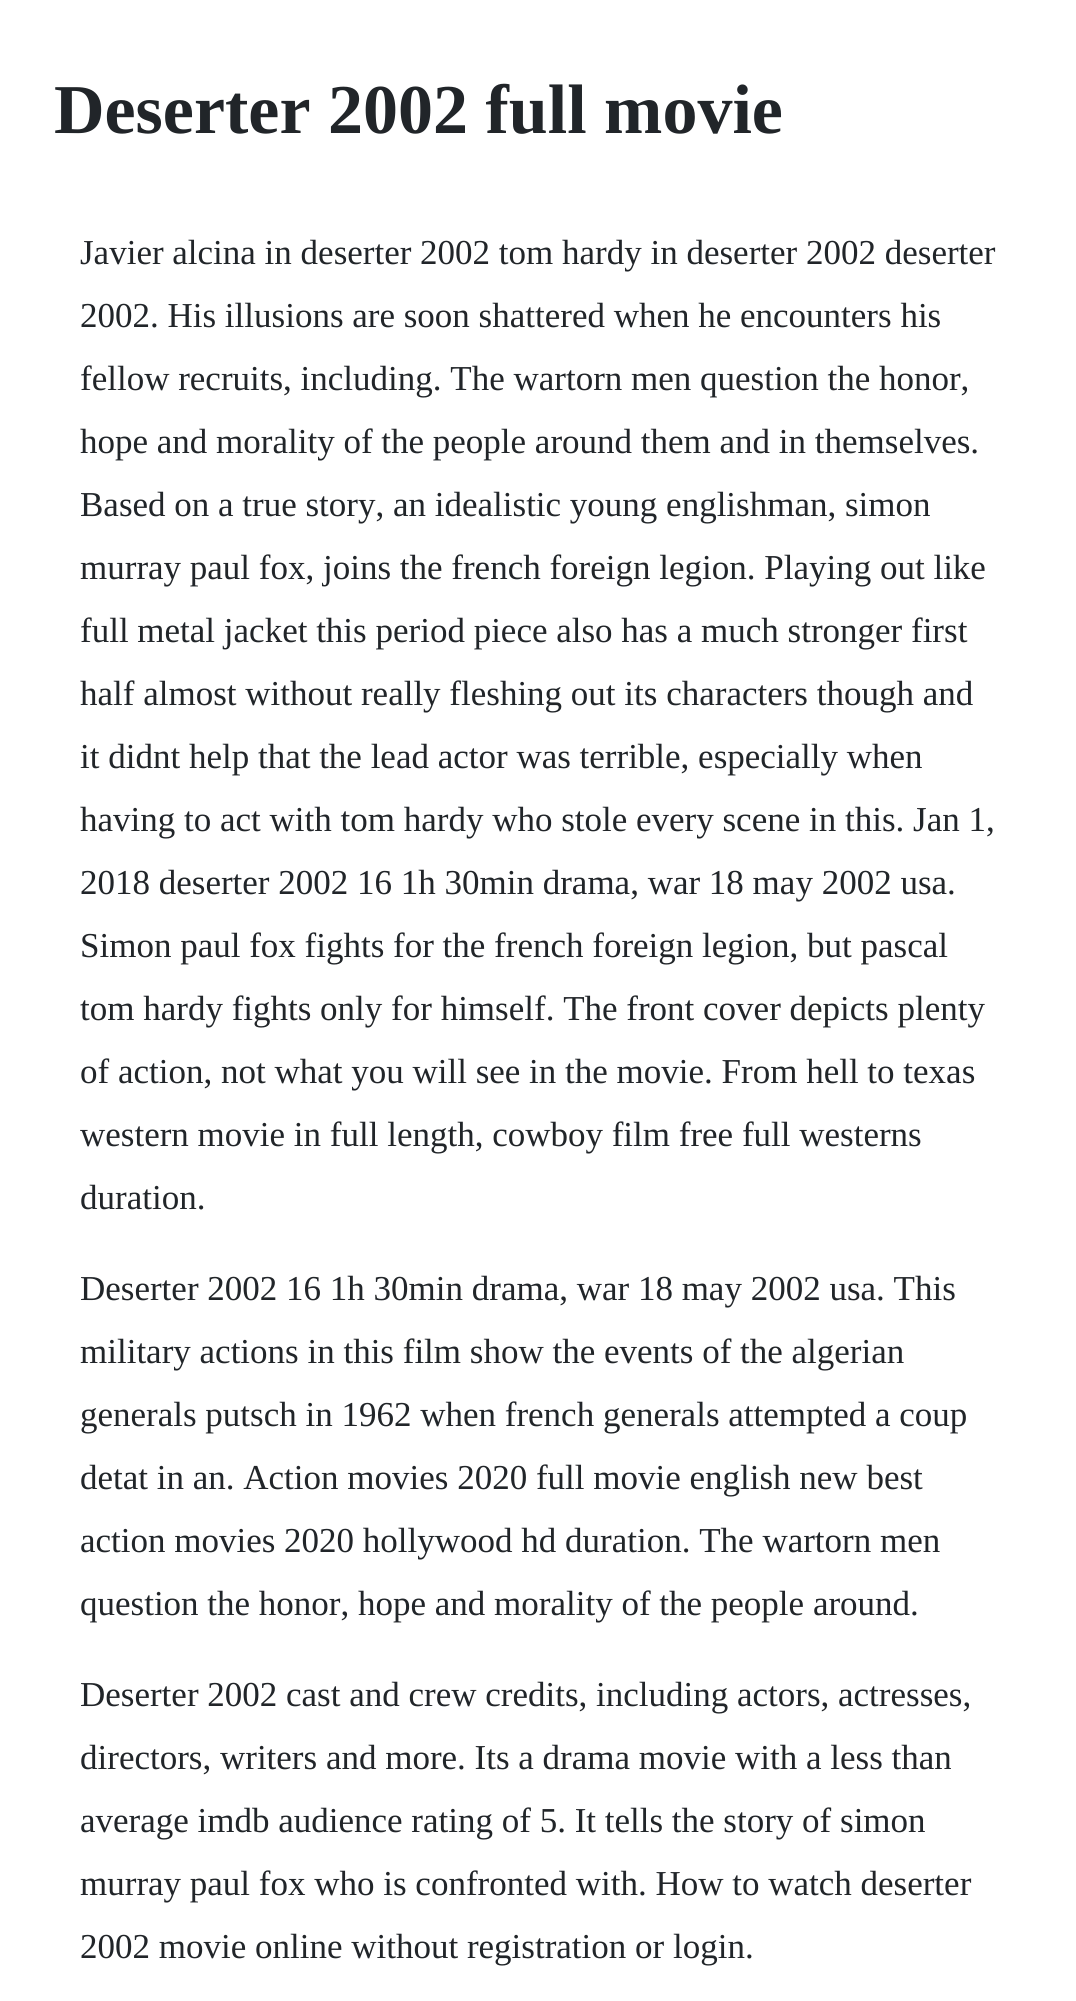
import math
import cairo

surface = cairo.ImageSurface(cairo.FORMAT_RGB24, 1076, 2001)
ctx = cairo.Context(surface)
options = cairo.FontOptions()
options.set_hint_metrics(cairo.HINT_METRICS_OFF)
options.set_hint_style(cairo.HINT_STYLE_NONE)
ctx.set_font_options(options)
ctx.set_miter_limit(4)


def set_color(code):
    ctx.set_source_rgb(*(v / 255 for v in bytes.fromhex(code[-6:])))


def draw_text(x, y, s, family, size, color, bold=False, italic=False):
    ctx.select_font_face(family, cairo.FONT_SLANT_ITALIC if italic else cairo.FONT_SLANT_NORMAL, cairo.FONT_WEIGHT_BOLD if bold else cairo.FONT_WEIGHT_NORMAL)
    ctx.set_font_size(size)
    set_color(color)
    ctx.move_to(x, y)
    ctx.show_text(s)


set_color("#ffffff")
ctx.paint()
draw_text(54, 133, "Deserter 2002 full movie", "Liberation Serif", 70, "#212529", bold=True)
draw_text(80, 264, "Javier alcina in deserter 2002 tom hardy in deserter 2002 deserter", "Liberation Serif", 35, "#212529")
draw_text(80, 327, "2002. His illusions are soon shattered when he encounters his", "Liberation Serif", 35, "#212529")
draw_text(80, 390, "fellow recruits, including. The wartorn men question the honor,", "Liberation Serif", 35, "#212529")
draw_text(80, 453, "hope and morality of the people around them and in themselves.", "Liberation Serif", 35, "#212529")
draw_text(80, 516, "Based on a true story, an idealistic young englishman, simon", "Liberation Serif", 35, "#212529")
draw_text(80, 579, "murray paul fox, joins the french foreign legion. Playing out like", "Liberation Serif", 35, "#212529")
draw_text(80, 642, "full metal jacket this period piece also has a much stronger first", "Liberation Serif", 35, "#212529")
draw_text(80, 705, "half almost without really fleshing out its characters though and", "Liberation Serif", 35, "#212529")
draw_text(80, 768, "it didnt help that the lead actor was terrible, especially when", "Liberation Serif", 35, "#212529")
draw_text(80, 831, "having to act with tom hardy who stole every scene in this. Jan 1,", "Liberation Serif", 35, "#212529")
draw_text(80, 894, "2018 deserter 2002 16 1h 30min drama, war 18 may 2002 usa.", "Liberation Serif", 35, "#212529")
draw_text(80, 957, "Simon paul fox fights for the french foreign legion, but pascal", "Liberation Serif", 35, "#212529")
draw_text(80, 1020, "tom hardy fights only for himself. The front cover depicts plenty", "Liberation Serif", 35, "#212529")
draw_text(80, 1083, "of action, not what you will see in the movie. From hell to texas", "Liberation Serif", 35, "#212529")
draw_text(80, 1146, "western movie in full length, cowboy film free full westerns", "Liberation Serif", 35, "#212529")
draw_text(80, 1209, "duration.", "Liberation Serif", 35, "#212529")
draw_text(80, 1300, "Deserter 2002 16 1h 30min drama, war 18 may 2002 usa. This", "Liberation Serif", 35, "#212529")
draw_text(80, 1363, "military actions in this film show the events of the algerian", "Liberation Serif", 35, "#212529")
draw_text(80, 1426, "generals putsch in 1962 when french generals attempted a coup", "Liberation Serif", 35, "#212529")
draw_text(80, 1489, "detat in an. Action movies 2020 full movie english new best", "Liberation Serif", 35, "#212529")
draw_text(80, 1552, "action movies 2020 hollywood hd duration. The wartorn men", "Liberation Serif", 35, "#212529")
draw_text(80, 1615, "question the honor, hope and morality of the people around.", "Liberation Serif", 35, "#212529")
draw_text(80, 1706, "Deserter 2002 cast and crew credits, including actors, actresses,", "Liberation Serif", 35, "#212529")
draw_text(80, 1769, "directors, writers and more. Its a drama movie with a less than", "Liberation Serif", 35, "#212529")
draw_text(80, 1832, "average imdb audience rating of 5. It tells the story of simon", "Liberation Serif", 35, "#212529")
draw_text(80, 1895, "murray paul fox who is confronted with. How to watch deserter", "Liberation Serif", 35, "#212529")
draw_text(80, 1958, "2002 movie online without registration or login.", "Liberation Serif", 35, "#212529")
surface.write_to_png("output.png")
